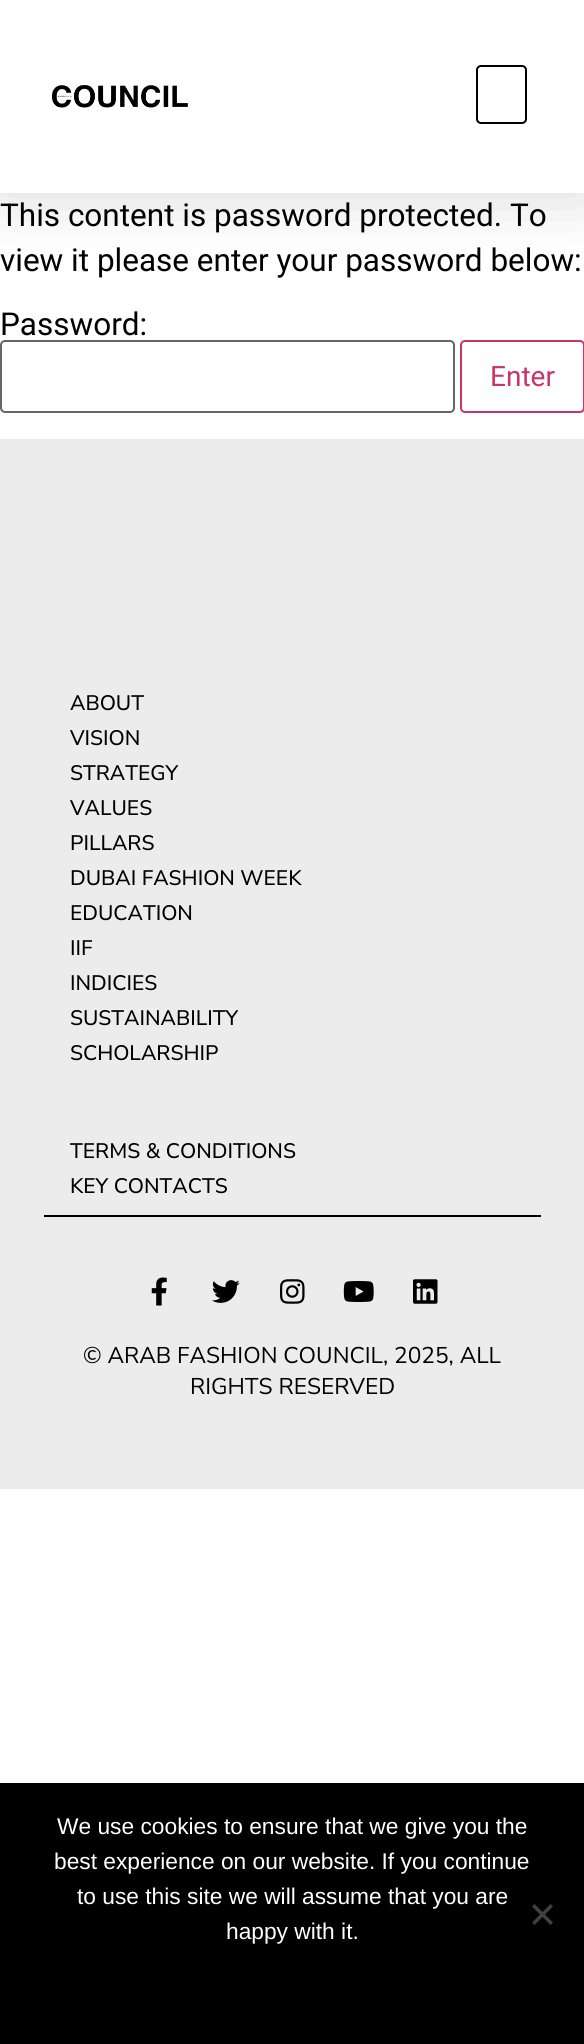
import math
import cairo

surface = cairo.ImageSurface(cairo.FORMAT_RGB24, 584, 2044)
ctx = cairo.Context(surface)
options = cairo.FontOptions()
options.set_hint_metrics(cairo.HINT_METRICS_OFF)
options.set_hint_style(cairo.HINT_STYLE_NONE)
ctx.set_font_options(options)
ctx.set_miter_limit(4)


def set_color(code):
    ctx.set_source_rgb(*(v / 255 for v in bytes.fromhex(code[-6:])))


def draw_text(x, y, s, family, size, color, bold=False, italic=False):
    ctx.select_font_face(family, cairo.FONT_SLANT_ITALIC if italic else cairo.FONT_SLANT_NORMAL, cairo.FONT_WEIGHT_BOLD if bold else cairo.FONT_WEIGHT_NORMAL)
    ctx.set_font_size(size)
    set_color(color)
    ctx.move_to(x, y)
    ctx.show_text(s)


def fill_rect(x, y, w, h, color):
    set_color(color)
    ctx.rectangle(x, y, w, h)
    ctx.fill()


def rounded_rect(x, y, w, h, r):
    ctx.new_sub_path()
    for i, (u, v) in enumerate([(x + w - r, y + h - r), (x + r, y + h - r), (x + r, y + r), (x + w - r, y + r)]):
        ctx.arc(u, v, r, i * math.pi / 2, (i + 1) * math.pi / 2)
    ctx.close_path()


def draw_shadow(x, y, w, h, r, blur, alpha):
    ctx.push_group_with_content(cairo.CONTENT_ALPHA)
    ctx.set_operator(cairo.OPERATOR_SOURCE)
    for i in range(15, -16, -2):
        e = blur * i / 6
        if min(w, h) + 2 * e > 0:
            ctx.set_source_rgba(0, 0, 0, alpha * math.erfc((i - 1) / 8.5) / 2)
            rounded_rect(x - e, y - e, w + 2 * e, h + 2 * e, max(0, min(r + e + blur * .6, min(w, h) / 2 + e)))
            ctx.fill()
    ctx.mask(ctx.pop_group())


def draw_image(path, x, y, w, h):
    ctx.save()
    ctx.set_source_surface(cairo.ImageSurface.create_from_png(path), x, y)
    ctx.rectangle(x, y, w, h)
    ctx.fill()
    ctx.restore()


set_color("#ffffff")
ctx.paint()
set_color("#000000")
draw_shadow(0, 0, 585, 193, 0, 35, 0.16)
fill_rect(0, 0, 584, 193, "#ffffff")
draw_image("assets/img1.png", 51, 85, 137, 23)
rounded_rect(477, 66, 49, 57, 4)
set_color("#000000")
ctx.stroke()
draw_text(0, 226, "This content is password protected. To", "Roboto", 31.5, "#000000")
draw_text(0, 271, "view it please enter your password below:", "Roboto", 31.5, "#000000")
draw_text(0, 335, "Password:", "Roboto", 31.5, "#000000")
rounded_rect(1, 341, 453, 71, 4)
set_color("#666666")
ctx.stroke()
rounded_rect(461, 341, 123, 71, 4)
set_color("#cc3366")
ctx.stroke()
draw_text(490, 386, "Enter", "Roboto", 28, "#cc3366")
fill_rect(0, 439, 584, 1050, "#ececec")
draw_text(70, 710, "ABOUT", "Nunito Sans Medium", 21, "#000000")
draw_text(70, 745, "VISION", "Nunito Sans Medium", 21, "#000000")
draw_text(70, 780, "STRATEGY", "Nunito Sans Medium", 21, "#000000")
draw_text(70, 815, "VALUES", "Nunito Sans Medium", 21, "#000000")
draw_text(70, 850, "PILLARS", "Nunito Sans Medium", 21, "#000000")
draw_text(70, 885, "DUBAI FASHION WEEK", "Nunito Sans Medium", 21, "#000000")
draw_text(70, 920, "EDUCATION", "Nunito Sans Medium", 21, "#000000")
draw_text(70, 955, "IIF", "Nunito Sans Medium", 21, "#000000")
draw_text(70, 990, "INDICIES", "Nunito Sans Medium", 21, "#000000")
draw_text(70, 1025, "SUSTAINABILITY", "Nunito Sans Medium", 21, "#000000")
draw_text(70, 1060, "SCHOLARSHIP", "Nunito Sans Medium", 21, "#000000")
draw_text(70, 1158, "TERMS & CONDITIONS", "Nunito Sans Medium", 21, "#000000")
draw_text(70, 1193, "KEY CONTACTS", "Nunito Sans Medium", 21, "#000000")
fill_rect(44, 1215, 497, 2, "#000000")
draw_image("assets/img2.png", 151, 1277, 16, 29)
draw_image("assets/img3.png", 212, 1280, 28, 23)
draw_image("assets/img4.png", 280, 1279, 25, 25)
draw_image("assets/img5.png", 343, 1281, 31, 21)
draw_image("assets/img6.png", 413, 1279, 25, 25)
draw_text(83, 1363, "© ARAB FASHION COUNCIL, 2025, ALL", "Nunito Sans", 22.75, "#000000")
draw_text(190, 1394, "RIGHTS RESERVED", "Nunito Sans", 22.75, "#000000")
fill_rect(0, 1783, 584, 261, "#000000")
draw_text(57, 1834, "We use cookies to ensure that we give you the", "Liberation Sans", 22.75, "#ffffff")
draw_text(54, 1869, "best experience on our website. If you continue", "Liberation Sans", 22.75, "#ffffff")
draw_text(77, 1904, "to use this site we will assume that you are", "Liberation Sans", 22.75, "#ffffff")
draw_text(226, 1939, "happy with it.", "Liberation Sans", 22.75, "#ffffff")
set_color("#404040")
ctx.new_path()
ctx.move_to(550.5, 1904)
ctx.line_to(553, 1906.5)
ctx.line_to(534.5, 1925)
ctx.line_to(532, 1922.5)
ctx.close_path()
ctx.fill()
ctx.new_path()
ctx.move_to(532, 1906.5)
ctx.line_to(534.5, 1904)
ctx.line_to(553, 1922.5)
ctx.line_to(550.5, 1925)
ctx.close_path()
ctx.fill()
surface.write_to_png("output.png")
